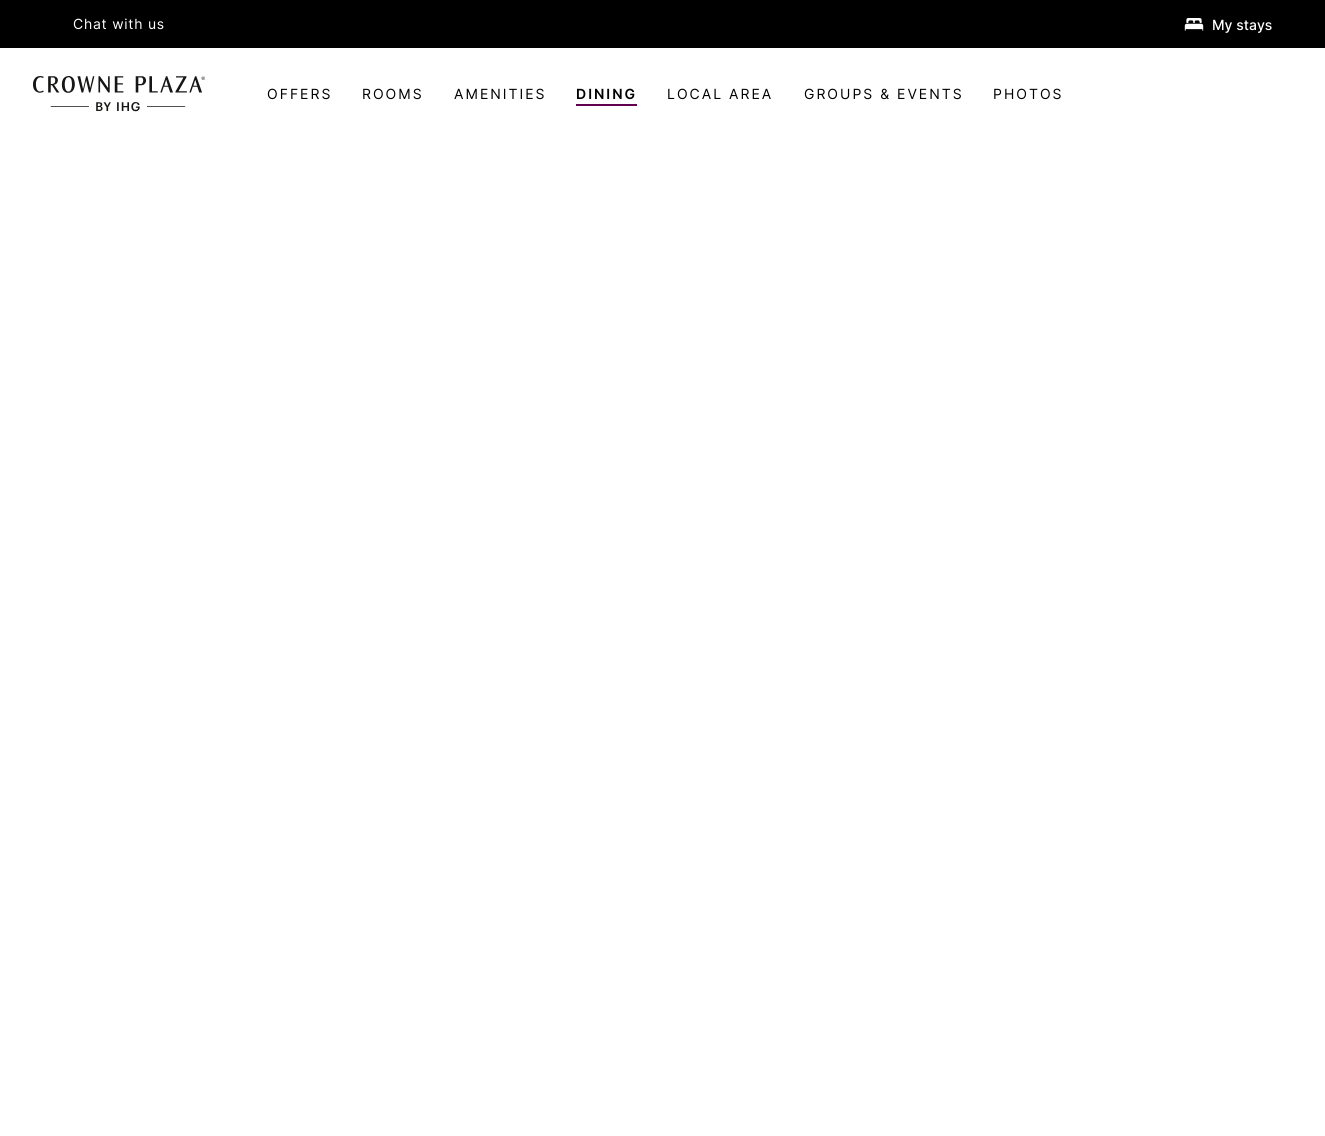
import math
import cairo

surface = cairo.ImageSurface(cairo.FORMAT_RGB24, 1325, 1136)
ctx = cairo.Context(surface)
options = cairo.FontOptions()
options.set_hint_metrics(cairo.HINT_METRICS_OFF)
options.set_hint_style(cairo.HINT_STYLE_NONE)
ctx.set_font_options(options)
ctx.set_miter_limit(4)


def set_color(code):
    ctx.set_source_rgb(*(v / 255 for v in bytes.fromhex(code[-6:])))


def draw_text(x, y, s, family, size, color, bold=False, italic=False):
    ctx.select_font_face(family, cairo.FONT_SLANT_ITALIC if italic else cairo.FONT_SLANT_NORMAL, cairo.FONT_WEIGHT_BOLD if bold else cairo.FONT_WEIGHT_NORMAL)
    ctx.set_font_size(size)
    set_color(color)
    ctx.move_to(x, y)
    ctx.show_text(s)


def draw_spaced(x, y, s, letter, word):
    ctx.move_to(x, y)
    for ch in s:
        ctx.show_text(ch)
        ctx.rel_move_to(letter + word * (ch == ' '), 0)


def fill_rect(x, y, w, h, color):
    set_color(color)
    ctx.rectangle(x, y, w, h)
    ctx.fill()


def draw_image(path, x, y, w, h):
    ctx.save()
    ctx.set_source_surface(cairo.ImageSurface.create_from_png(path), x, y)
    ctx.rectangle(x, y, w, h)
    ctx.fill()
    ctx.restore()


set_color("#ffffff")
ctx.paint()
fill_rect(0, 0, 1325, 48, "#000000")
ctx.select_font_face("Inter")
ctx.set_font_size(14)
set_color("#ffffff")
draw_spaced(73, 29, "Chat with us", 0.75, 0)
draw_image("assets/img1.png", 1184, 18, 20, 13)
draw_text(1212, 30, "My stays", "Inter Medium", 14, "#ffffff")
draw_image("assets/img2.png", 33, 76, 172, 36)
ctx.select_font_face("Inter")
set_color("#000000")
draw_spaced(267, 99, "OFFERS", 2, 0)
draw_spaced(362, 99, "ROOMS", 2, 0)
draw_spaced(454, 99, "AMENITIES", 2, 0)
ctx.select_font_face("Inter SemiBold")
draw_spaced(576, 99, "DINING", 2, 0)
fill_rect(576, 104, 61, 2, "#60004e")
ctx.select_font_face("Inter")
set_color("#000000")
draw_spaced(667, 99, "LOCAL AREA", 2, 0)
draw_spaced(804, 99, "GROUPS & EVENTS", 2, 0)
draw_spaced(993, 99, "PHOTOS", 2, 0)
surface.write_to_png("output.png")
